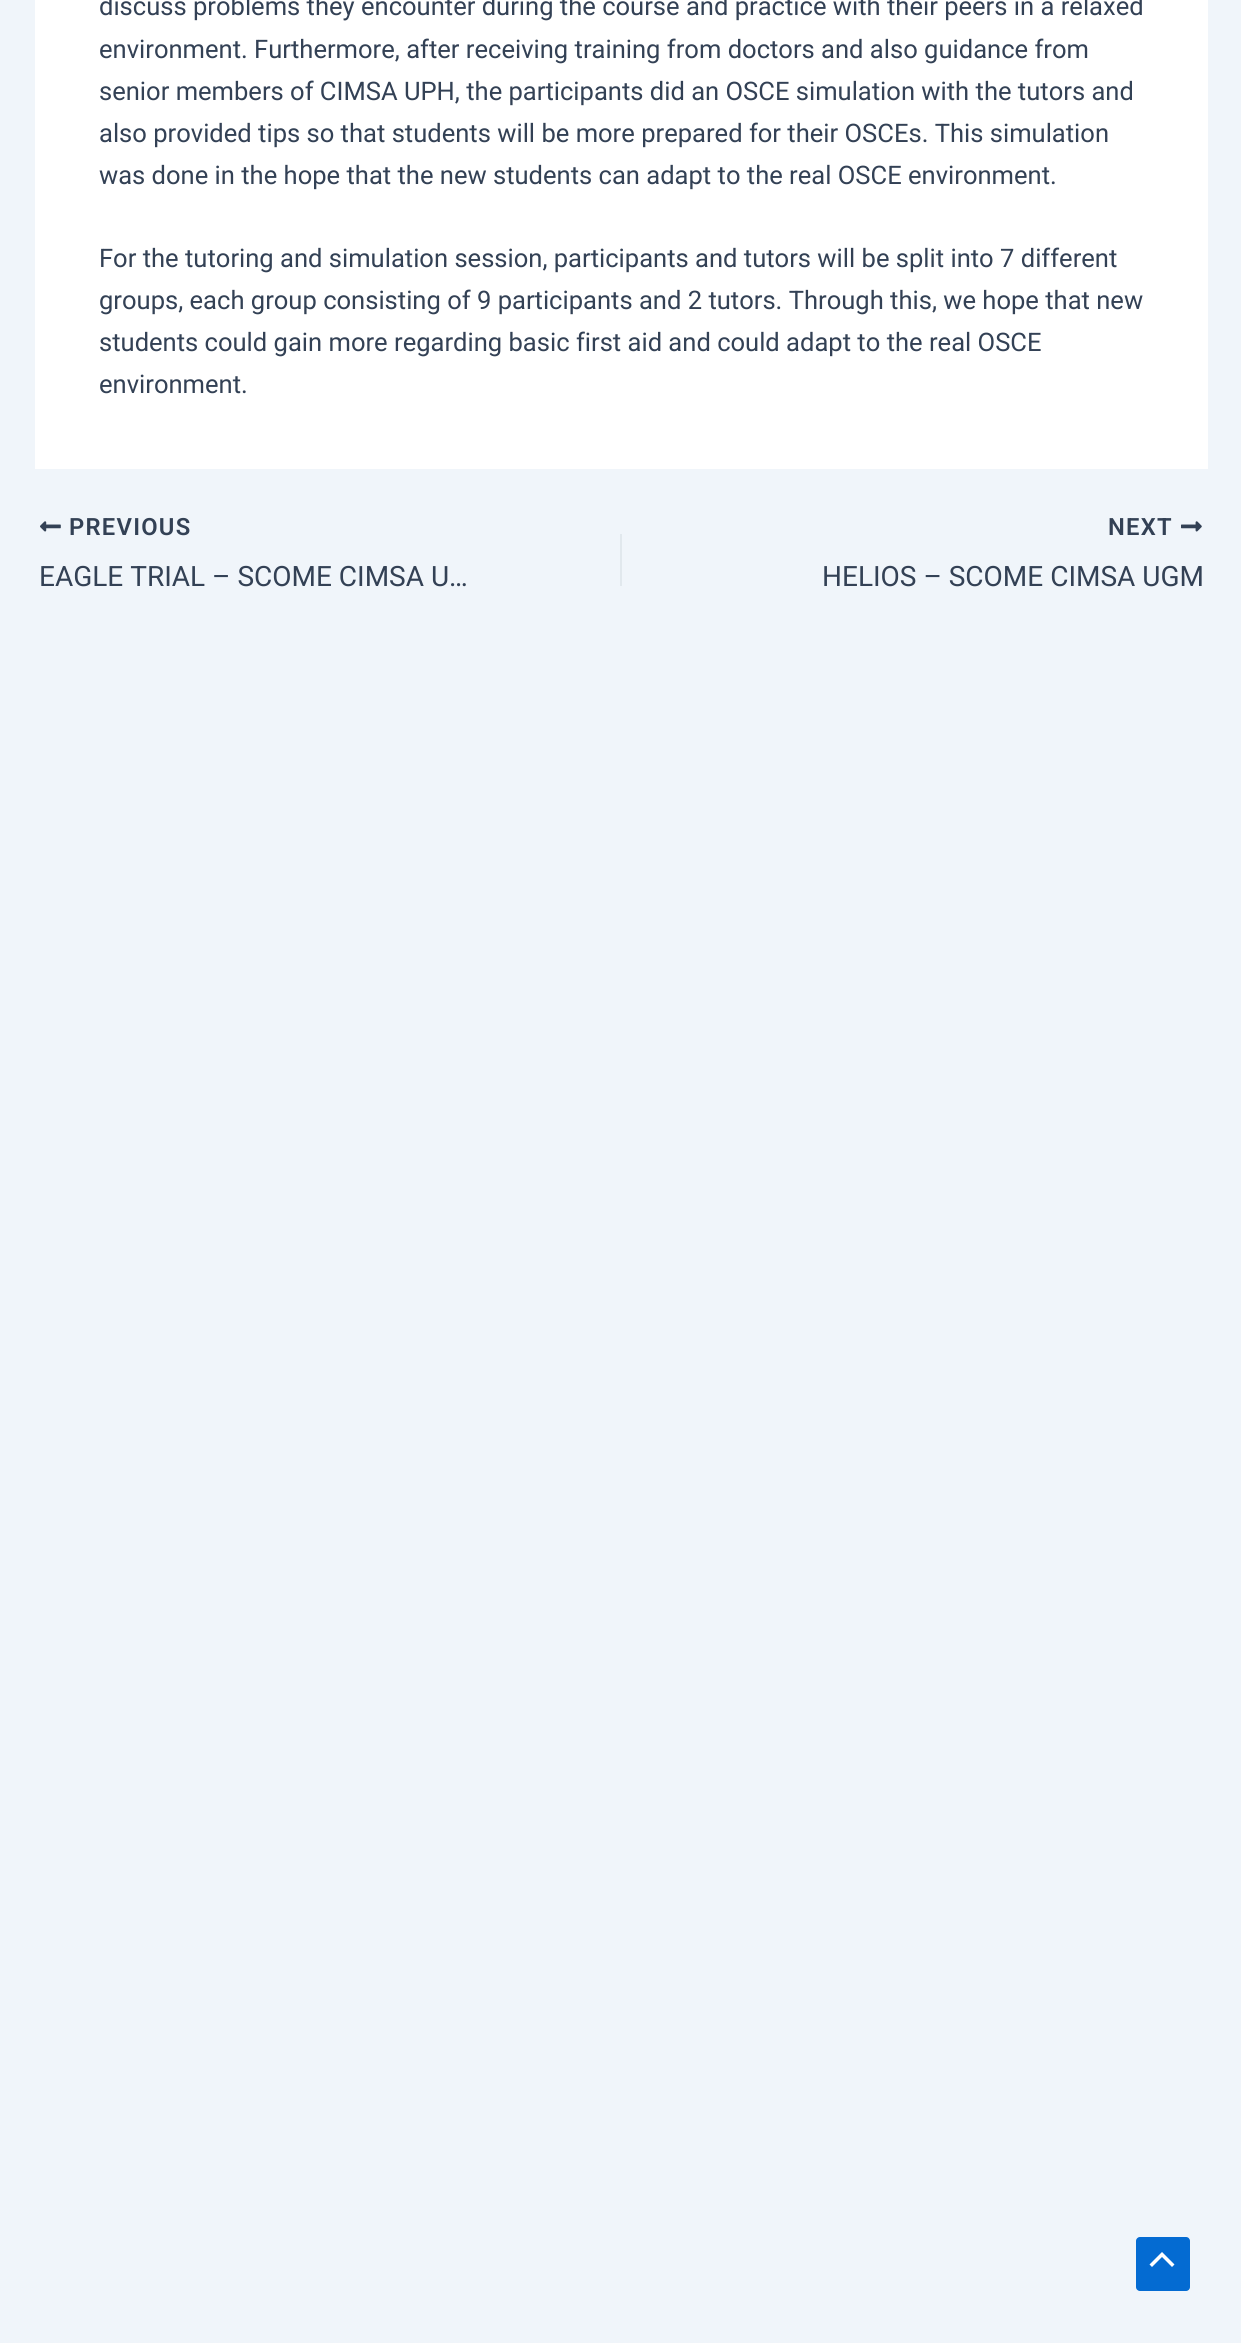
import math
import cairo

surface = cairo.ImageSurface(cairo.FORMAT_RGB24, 1241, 2343)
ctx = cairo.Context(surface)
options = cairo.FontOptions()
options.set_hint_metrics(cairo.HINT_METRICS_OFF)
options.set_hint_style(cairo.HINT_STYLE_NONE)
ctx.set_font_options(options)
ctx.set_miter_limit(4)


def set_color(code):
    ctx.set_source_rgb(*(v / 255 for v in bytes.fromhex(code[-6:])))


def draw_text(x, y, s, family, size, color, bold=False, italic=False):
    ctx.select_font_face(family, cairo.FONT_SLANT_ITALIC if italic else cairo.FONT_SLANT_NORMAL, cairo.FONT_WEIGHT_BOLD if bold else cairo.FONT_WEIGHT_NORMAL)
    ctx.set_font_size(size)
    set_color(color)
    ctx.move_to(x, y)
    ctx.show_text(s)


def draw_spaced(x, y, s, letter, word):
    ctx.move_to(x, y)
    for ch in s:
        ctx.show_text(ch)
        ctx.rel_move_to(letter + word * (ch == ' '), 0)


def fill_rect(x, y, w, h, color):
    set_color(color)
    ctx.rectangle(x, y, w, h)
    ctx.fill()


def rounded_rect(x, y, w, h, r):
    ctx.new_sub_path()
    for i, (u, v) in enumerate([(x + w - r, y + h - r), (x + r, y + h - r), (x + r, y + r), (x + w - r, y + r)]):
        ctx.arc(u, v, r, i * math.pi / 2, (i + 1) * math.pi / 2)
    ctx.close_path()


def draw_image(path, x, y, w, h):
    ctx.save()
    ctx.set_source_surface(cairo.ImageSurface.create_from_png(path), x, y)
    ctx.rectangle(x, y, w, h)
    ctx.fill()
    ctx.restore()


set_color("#f0f5fa")
ctx.paint()
fill_rect(35, 0, 1173, 469, "#ffffff")
draw_text(99, 15, "discuss problems they encounter during the course and practice with their peers in a relaxed", "Roboto", 25.55, "#334155")
draw_text(99, 58, "environment. Furthermore, after receiving training from doctors and also guidance from", "Roboto", 25.55, "#334155")
draw_text(99, 100, "senior members of CIMSA UPH, the participants did an OSCE simulation with the tutors and", "Roboto", 25.55, "#334155")
draw_text(99, 142, "also provided tips so that students will be more prepared for their OSCEs. This simulation", "Roboto", 25.55, "#334155")
draw_text(99, 184, "was done in the hope that the new students can adapt to the real OSCE environment.", "Roboto", 25.55, "#334155")
draw_text(99, 267, "For the tutoring and simulation session, participants and tutors will be split into 7 different", "Roboto", 25.55, "#334155")
draw_text(99, 309, "groups, each group consisting of 9 participants and 2 tutors. Through this, we hope that new", "Roboto", 25.55, "#334155")
draw_text(99, 351, "students could gain more regarding basic first aid and could adapt to the real OSCE", "Roboto", 25.55, "#334155")
draw_text(99, 393, "environment.", "Roboto", 25.55, "#334155")
draw_image("assets/img1.png", 40, 521, 21, 11)
ctx.select_font_face("Roboto SemiBold")
ctx.set_font_size(23.75)
draw_spaced(69, 535, "PREVIOUS", 1.25, 0)
draw_text(39, 586, "EAGLE TRIAL – SCOME CIMSA U…", "Roboto", 28, "#334155")
fill_rect(620, 534, 2, 52, "#e1e8ed")
ctx.select_font_face("Roboto SemiBold")
ctx.set_font_size(23.75)
set_color("#334155")
draw_spaced(1108, 535, "NEXT", 1.25, 0)
draw_image("assets/img2.png", 1181, 521, 21, 11)
draw_text(822, 586, "HELIOS – SCOME CIMSA UGM", "Roboto", 28, "#334155")
set_color("#046bd2")
rounded_rect(1136, 2237, 54, 54, 4)
ctx.fill()
set_color("#ffffff")
ctx.new_path()
ctx.move_to(1174.5, 2264.5)
ctx.line_to(1162, 2252)
ctx.line_to(1149.5, 2264.5)
ctx.line_to(1152, 2267)
ctx.line_to(1162, 2257)
ctx.line_to(1172, 2267)
ctx.close_path()
ctx.fill()
surface.write_to_png("output.png")
